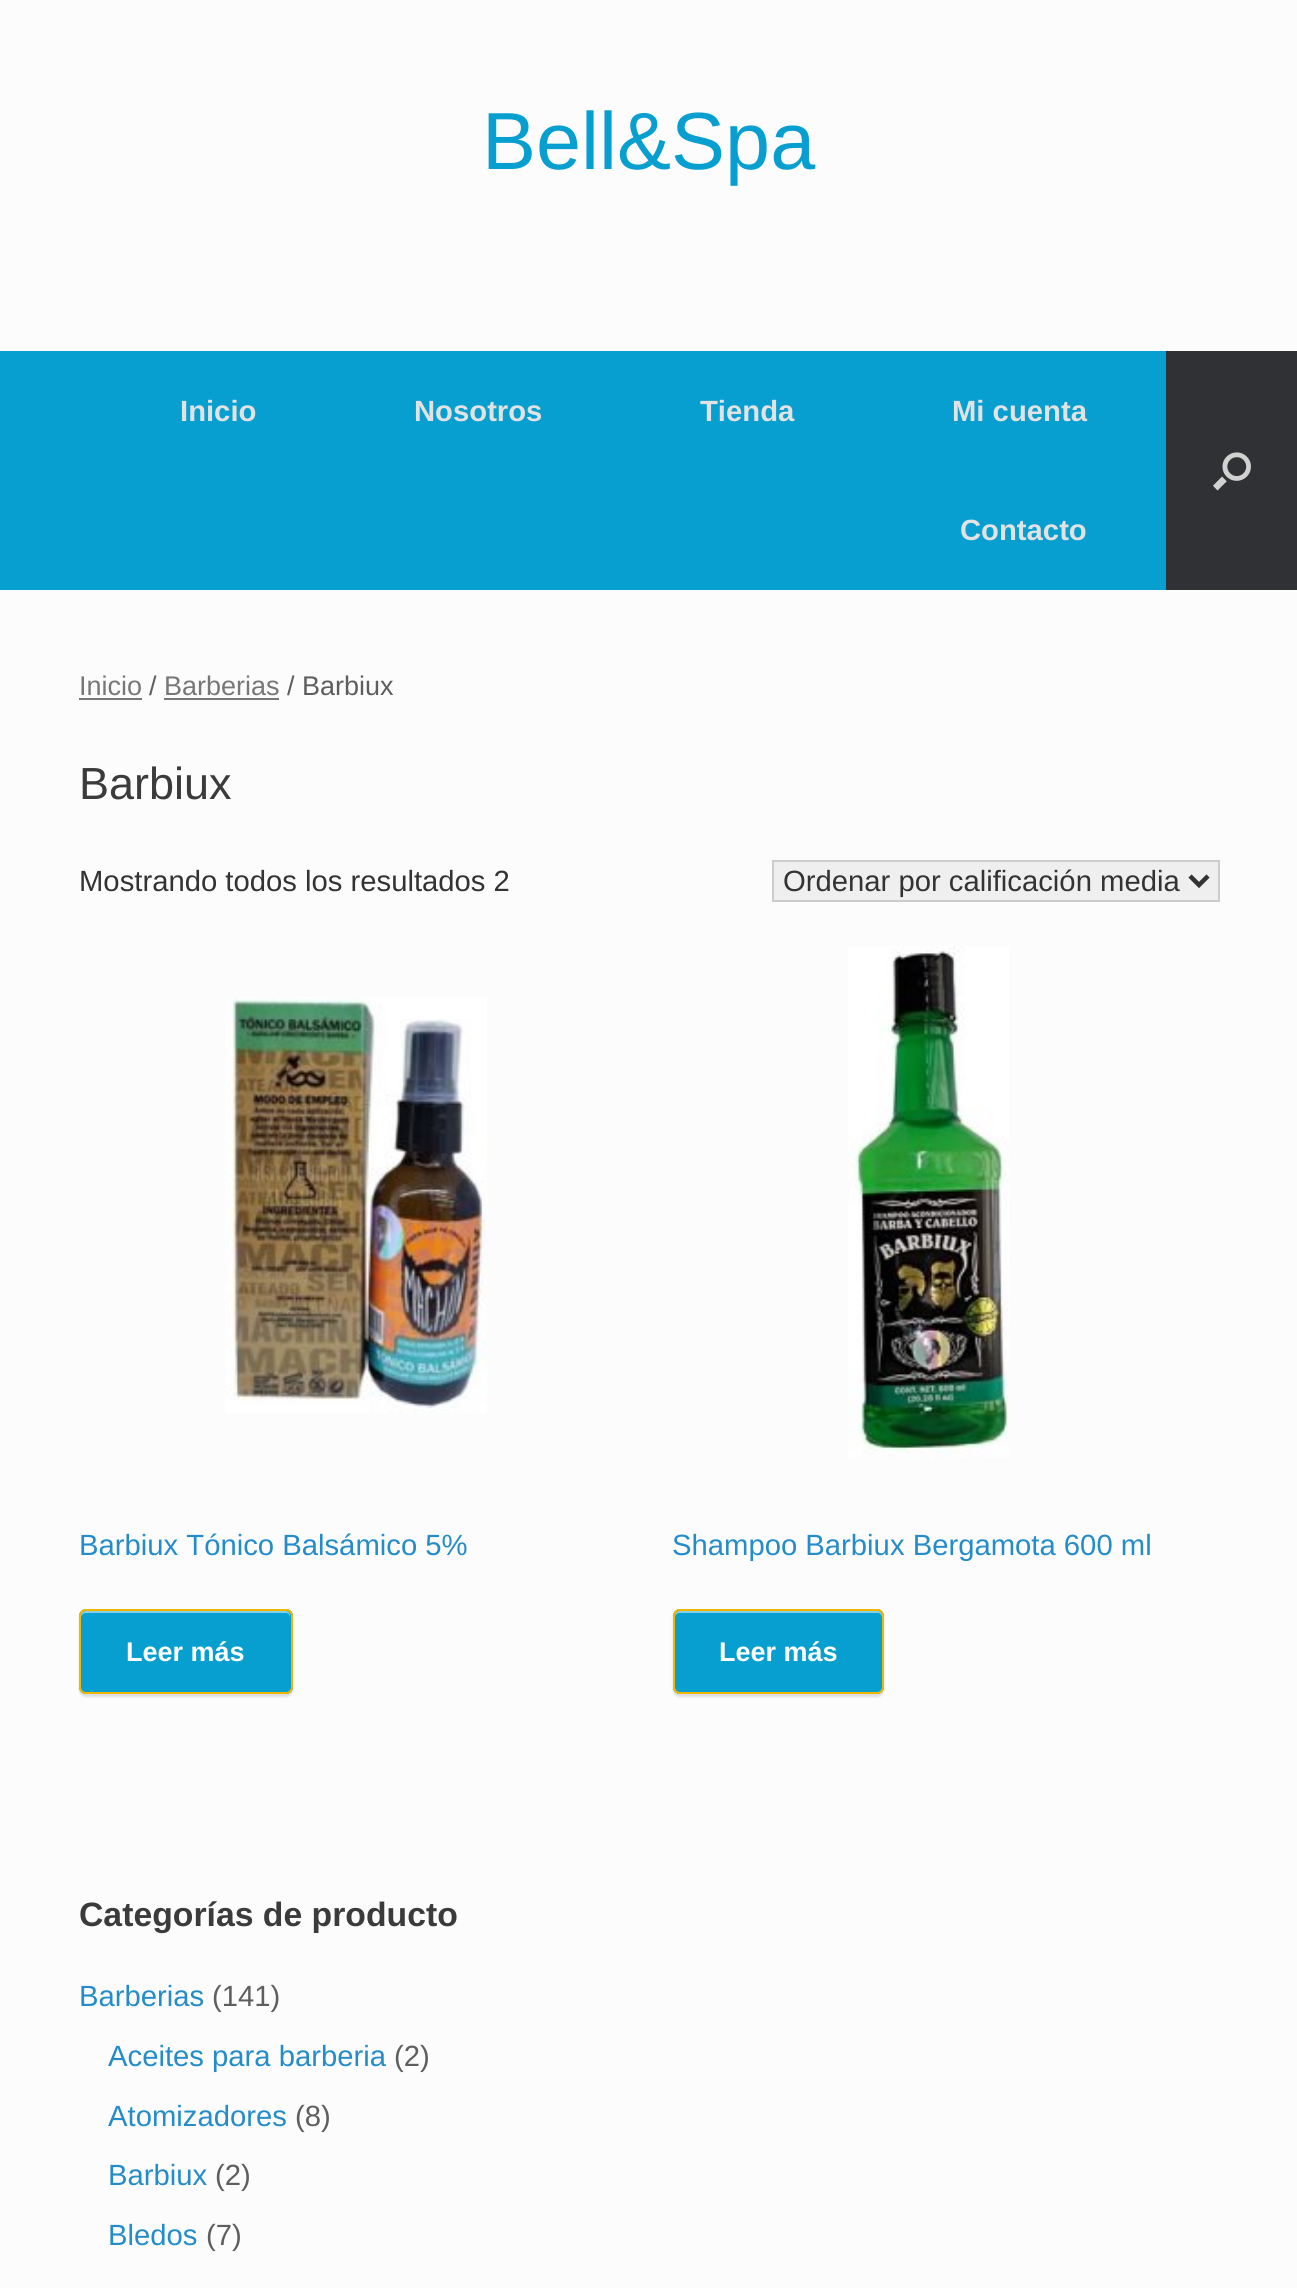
import math
import cairo

surface = cairo.ImageSurface(cairo.FORMAT_RGB24, 1297, 2288)
ctx = cairo.Context(surface)
options = cairo.FontOptions()
options.set_hint_metrics(cairo.HINT_METRICS_OFF)
options.set_hint_style(cairo.HINT_STYLE_NONE)
ctx.set_font_options(options)
ctx.set_miter_limit(4)


def set_color(code):
    ctx.set_source_rgb(*(v / 255 for v in bytes.fromhex(code[-6:])))


def draw_text(x, y, s, family, size, color, bold=False, italic=False):
    ctx.select_font_face(family, cairo.FONT_SLANT_ITALIC if italic else cairo.FONT_SLANT_NORMAL, cairo.FONT_WEIGHT_BOLD if bold else cairo.FONT_WEIGHT_NORMAL)
    ctx.set_font_size(size)
    set_color(color)
    ctx.move_to(x, y)
    ctx.show_text(s)


def fill_rect(x, y, w, h, color):
    set_color(color)
    ctx.rectangle(x, y, w, h)
    ctx.fill()


def rounded_rect(x, y, w, h, r):
    ctx.new_sub_path()
    for i, (u, v) in enumerate([(x + w - r, y + h - r), (x + r, y + h - r), (x + r, y + r), (x + w - r, y + r)]):
        ctx.arc(u, v, r, i * math.pi / 2, (i + 1) * math.pi / 2)
    ctx.close_path()


def draw_shadow(x, y, w, h, r, blur, alpha):
    ctx.push_group_with_content(cairo.CONTENT_ALPHA)
    ctx.set_operator(cairo.OPERATOR_SOURCE)
    for i in range(15, -16, -2):
        e = blur * i / 6
        if min(w, h) + 2 * e > 0:
            ctx.set_source_rgba(0, 0, 0, alpha * math.erfc((i - 1) / 8.5) / 2)
            rounded_rect(x - e, y - e, w + 2 * e, h + 2 * e, max(0, min(r + e + blur * .6, min(w, h) / 2 + e)))
            ctx.fill()
    ctx.mask(ctx.pop_group())


def draw_image(path, x, y, w, h):
    ctx.save()
    ctx.set_source_surface(cairo.ImageSurface.create_from_png(path), x, y)
    ctx.rectangle(x, y, w, h)
    ctx.fill()
    ctx.restore()


set_color("#fcfcfc")
ctx.paint()
draw_text(482, 169, "Bell&Spa", "Liberation Sans", 81, "#079fd0")
fill_rect(0, 351, 1166, 239, "#079fd0")
draw_text(180, 421, "Inicio", "Liberation Sans", 29.25, "#e2e2e2", bold=True)
draw_text(414, 421, "Nosotros", "Liberation Sans", 29.25, "#e2e2e2", bold=True)
draw_text(700, 421, "Tienda", "Liberation Sans", 29.25, "#e2e2e2", bold=True)
draw_text(952, 421, "Mi cuenta", "Liberation Sans", 29.25, "#e2e2e2", bold=True)
draw_text(960, 540, "Contacto", "Liberation Sans", 29.25, "#e2e2e2", bold=True)
fill_rect(1166, 351, 131, 239, "#303134")
draw_image("assets/img1.png", 1213, 452, 38, 39)
draw_text(79, 695, "Inicio", "Liberation Sans", 27, "#777777")
fill_rect(79, 698, 63, 2, "#777777")
draw_text(149, 695, "/", "Liberation Sans", 27, "#5e5e5e")
draw_text(164, 695, "Barberias", "Liberation Sans", 27, "#777777")
fill_rect(164, 698, 115, 2, "#777777")
draw_text(287, 695, "/ Barbiux", "Liberation Sans", 27, "#5e5e5e")
draw_text(79, 799, "Barbiux", "Liberation Sans", 45, "#3b3b3b")
draw_text(79, 891, "Mostrando todos los resultados 2", "Liberation Sans", 29.25, "#333333")
set_color("#efefef")
ctx.rectangle(773, 861, 446, 40)
ctx.fill_preserve()
set_color("#cccccc")
ctx.stroke()
ctx.new_path()
ctx.move_to(1190, 876)
ctx.line_to(1199, 885)
ctx.line_to(1208, 876)
set_color("#333333")
ctx.set_line_width(4.5)
ctx.stroke()
draw_text(783, 891, "Ordenar por calificación media", "Liberation Sans", 29.25, "#333333")
draw_image("assets/img2.png", 225, 997, 262, 416)
draw_text(79, 1555, "Barbiux Tónico Balsámico 5%", "Liberation Sans", 29.25, "#248cc8")
set_color("#000000")
draw_shadow(79, 1611, 214, 86, 7, 1, 0.12)
set_color("#079fd0")
rounded_rect(79, 1609, 214, 85, 7)
ctx.fill()
set_color("#83cfe8")
ctx.new_path()
ctx.move_to(86, 1613)
ctx.line_to(286, 1613)
ctx.curve_to(288, 1613, 290, 1615, 290, 1618)
ctx.line_to(290, 1616)
ctx.curve_to(290, 1613, 288, 1611, 285, 1611)
ctx.line_to(86, 1611)
ctx.curve_to(83, 1611, 81, 1613, 81, 1616)
ctx.line_to(81, 1618)
ctx.curve_to(81, 1615, 83, 1613, 86, 1613)
ctx.close_path()
ctx.fill()
rounded_rect(80, 1610, 212, 83, 6)
set_color("#efb700")
ctx.set_line_width(2)
ctx.stroke()
draw_text(126, 1661, "Leer más", "Liberation Sans", 27, "#ffffff", bold=True)
draw_image("assets/img3.png", 848, 946, 161, 512)
draw_text(672, 1555, "Shampoo Barbiux Bergamota 600 ml", "Liberation Sans", 29.25, "#248cc8")
set_color("#000000")
draw_shadow(673, 1611, 211, 86, 7, 1, 0.12)
set_color("#079fd0")
rounded_rect(673, 1609, 211, 85, 7)
ctx.fill()
set_color("#83cfe8")
ctx.new_path()
ctx.move_to(680, 1613)
ctx.line_to(878, 1613)
ctx.curve_to(880, 1613, 882, 1615, 882, 1618)
ctx.line_to(882, 1616)
ctx.curve_to(882, 1613, 880, 1611, 877, 1611)
ctx.line_to(680, 1611)
ctx.curve_to(677, 1611, 675, 1613, 675, 1616)
ctx.line_to(675, 1618)
ctx.curve_to(675, 1615, 677, 1613, 680, 1613)
ctx.close_path()
ctx.fill()
rounded_rect(674, 1610, 209, 83, 6)
set_color("#efb700")
ctx.stroke()
draw_text(719, 1661, "Leer más", "Liberation Sans", 27, "#ffffff", bold=True)
draw_text(79, 1926, "Categorías de producto", "Liberation Sans", 33.75, "#3b3b3b", bold=True)
draw_text(79, 2006, "Barberias", "Liberation Sans", 29.25, "#248cc8")
draw_text(212, 2006, "(141)", "Liberation Sans", 29.25, "#5e5e5e")
draw_text(108, 2066, "Aceites para barberia", "Liberation Sans", 29.25, "#248cc8")
draw_text(394, 2066, "(2)", "Liberation Sans", 29.25, "#5e5e5e")
draw_text(108, 2126, "Atomizadores", "Liberation Sans", 29.25, "#248cc8")
draw_text(295, 2126, "(8)", "Liberation Sans", 29.25, "#5e5e5e")
draw_text(108, 2185, "Barbiux", "Liberation Sans", 29.25, "#248cc8")
draw_text(215, 2185, "(2)", "Liberation Sans", 29.25, "#5e5e5e")
draw_text(108, 2245, "Bledos", "Liberation Sans", 29.25, "#248cc8")
draw_text(206, 2245, "(7)", "Liberation Sans", 29.25, "#5e5e5e")
surface.write_to_png("output.png")
